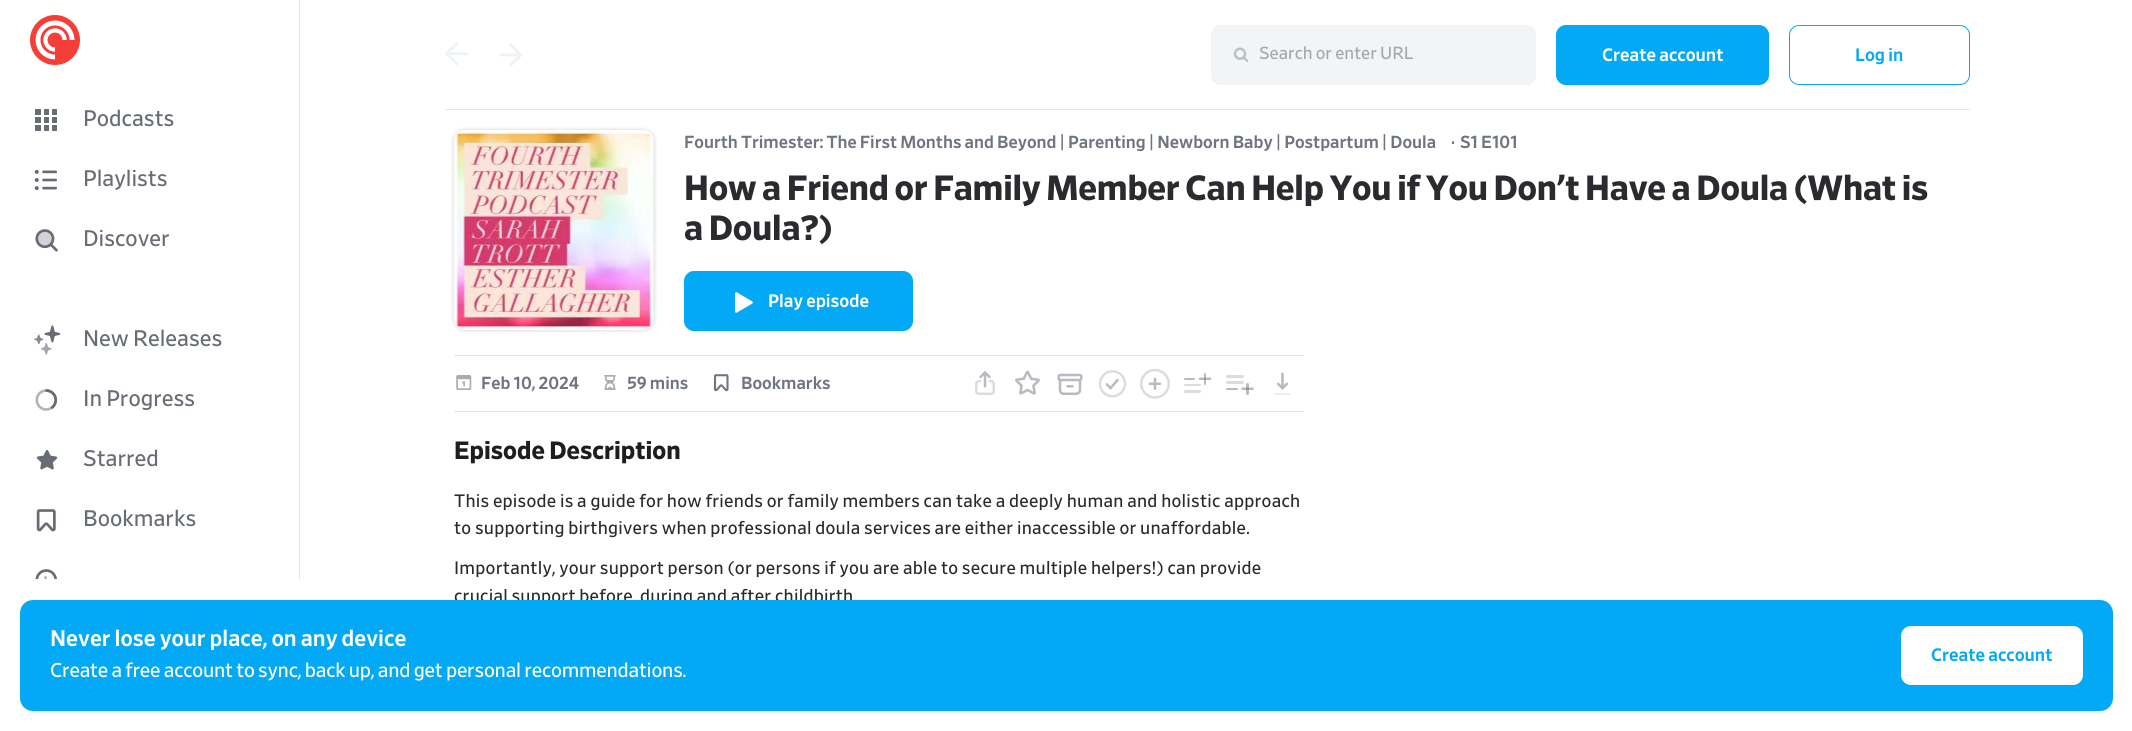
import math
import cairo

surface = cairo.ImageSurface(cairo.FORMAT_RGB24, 2132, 731)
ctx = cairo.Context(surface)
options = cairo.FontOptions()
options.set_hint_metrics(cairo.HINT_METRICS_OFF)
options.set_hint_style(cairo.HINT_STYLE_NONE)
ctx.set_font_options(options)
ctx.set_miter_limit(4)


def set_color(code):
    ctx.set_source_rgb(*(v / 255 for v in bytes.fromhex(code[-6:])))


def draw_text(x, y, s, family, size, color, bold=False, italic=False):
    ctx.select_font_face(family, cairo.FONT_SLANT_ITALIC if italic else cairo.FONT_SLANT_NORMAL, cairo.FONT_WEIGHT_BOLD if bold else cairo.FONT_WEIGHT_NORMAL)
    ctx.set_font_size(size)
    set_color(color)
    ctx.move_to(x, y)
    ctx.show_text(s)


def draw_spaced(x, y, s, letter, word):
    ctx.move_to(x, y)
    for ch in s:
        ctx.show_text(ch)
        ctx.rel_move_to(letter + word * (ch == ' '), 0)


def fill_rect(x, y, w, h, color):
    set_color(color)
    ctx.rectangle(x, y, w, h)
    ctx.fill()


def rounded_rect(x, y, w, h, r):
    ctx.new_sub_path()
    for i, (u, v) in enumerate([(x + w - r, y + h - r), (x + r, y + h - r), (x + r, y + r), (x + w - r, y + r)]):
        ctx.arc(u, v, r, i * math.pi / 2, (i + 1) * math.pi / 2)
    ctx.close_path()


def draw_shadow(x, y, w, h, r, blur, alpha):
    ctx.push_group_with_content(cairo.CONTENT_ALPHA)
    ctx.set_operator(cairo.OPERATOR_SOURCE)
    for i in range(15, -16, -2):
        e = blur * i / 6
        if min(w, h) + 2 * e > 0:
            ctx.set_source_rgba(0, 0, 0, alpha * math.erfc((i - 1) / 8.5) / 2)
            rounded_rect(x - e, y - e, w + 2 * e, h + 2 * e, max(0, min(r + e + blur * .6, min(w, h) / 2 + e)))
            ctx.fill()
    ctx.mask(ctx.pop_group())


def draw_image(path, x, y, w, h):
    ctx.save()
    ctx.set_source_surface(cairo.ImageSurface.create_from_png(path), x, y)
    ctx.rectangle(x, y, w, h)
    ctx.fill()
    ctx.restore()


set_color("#ffffff")
ctx.paint()
fill_rect(445, 109, 1525, 1, "#e0e6ea")
draw_image("assets/img1.png", 445, 42, 24, 24)
draw_image("assets/img2.png", 499, 43, 24, 24)
set_color("#f2f4f5")
rounded_rect(1211, 25, 325, 60, 10)
ctx.fill()
draw_image("assets/img3.png", 1233, 47, 16, 15)
rounded_rect(1211.5, 25.5, 324, 59, 9.5)
ctx.set_line_width(1)
ctx.stroke()
draw_text(1259, 59, "Search or enter URL", "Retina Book", 17.5, "#a3a8af")
set_color("#03a9f4")
rounded_rect(1556.5, 25.5, 212, 59, 9.5)
ctx.fill_preserve()
ctx.stroke()
draw_text(1602, 61, "Create account", "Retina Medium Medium", 18, "#ffffff")
rounded_rect(1789.5, 25.5, 180, 59, 9.5)
set_color("#03a9f4")
ctx.stroke()
draw_text(1855, 61, "Log in", "Retina Medium Medium", 18, "#03a9f4")
set_color("#000000")
draw_shadow(454, 130, 200, 200, 10, 2, 0.2)
draw_image("assets/img4.png", 454, 130, 200, 200)
draw_text(684, 148, "Fourth Trimester: The First Months and Beyond | Parenting | Newborn Baby | Postpartum | Doula", "Retina Medium Medium", 17.5, "#6f7580")
draw_text(1451, 148, "·", "Retina Medium Medium", 17.5, "#6f7580")
draw_text(1460, 148, "S1 E101", "Retina Medium Medium", 17.5, "#6f7580")
ctx.select_font_face("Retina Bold", cairo.FONT_SLANT_NORMAL, cairo.FONT_WEIGHT_BOLD)
ctx.set_font_size(35)
set_color("#292b2e")
draw_spaced(684, 200, "How a Friend or Family Member Can Help You if You Don’t Have a Doula (What is", -0.25, 0)
draw_spaced(684, 240, "a Doula?)", -0.25, 0)
set_color("#03a9f4")
rounded_rect(684.5, 271.5, 228, 59, 9.5)
ctx.fill_preserve()
ctx.stroke()
draw_image("assets/img5.png", 735, 292, 18, 21)
draw_text(768, 307, "Play episode", "Retina Medium Medium", 18, "#ffffff")
fill_rect(454, 355, 850, 1, "#e0e6ea")
fill_rect(454, 411, 850, 1, "#e0e6ea")
draw_image("assets/img6.png", 456, 375, 16, 15)
draw_text(481, 389, "Feb 10, 2024", "Retina Medium Medium", 17.5, "#6f7580")
draw_image("assets/img7.png", 604, 375, 12, 15)
draw_text(627, 389, "59 mins", "Retina Medium Medium", 17.5, "#6f7580")
draw_image("assets/img8.png", 713, 374, 16, 18)
draw_text(741, 389, "Bookmarks", "Retina Medium Medium", 17.5, "#6f7580")
draw_image("assets/img9.png", 975, 371, 20, 24)
draw_image("assets/img10.png", 1015, 370, 25, 25)
draw_image("assets/img11.png", 1057, 373, 26, 22)
draw_image("assets/img12.png", 1098, 370, 29, 28)
draw_image("assets/img13.png", 1140, 369, 30, 30)
draw_image("assets/img14.png", 1184, 373, 28, 20)
draw_image("assets/img15.png", 1226, 375, 28, 20)
draw_image("assets/img16.png", 1274, 372, 17, 23)
draw_text(454, 459, "Episode Description", "Retina Bold", 25, "#1e1e1f", bold=True)
ctx.select_font_face("Retina Book")
ctx.set_font_size(18)
set_color("#292b2e")
draw_spaced(454, 507, "This episode is a guide for how friends or family members can take a deeply human and holistic approach", 0.25, 0)
draw_spaced(454, 534, "to supporting birthgivers when professional doula services are either inaccessible or unaffordable.", 0.25, 0)
draw_spaced(454, 574, "Importantly, your support person (or persons if you are able to secure multiple helpers!) can provide", 0.25, 0)
draw_spaced(454, 602, "crucial support before, during and after childbirth.", 0.25, 0)
set_color("#000000")
draw_shadow(20, 603, 2093, 111, 13, 1, 0.04)
set_color("#03a9f4")
rounded_rect(20, 600, 2093, 111, 13)
ctx.fill()
draw_text(50, 646, "Never lose your place, on any device", "Retina Medium Medium", 22.5, "#ffffff")
ctx.select_font_face("Retina Book")
ctx.set_font_size(20)
draw_spaced(50, 677, "Create a free account to sync, back up, and get personal recommendations.", -0.2, 0)
rounded_rect(1901, 626, 182, 59, 10)
ctx.fill()
draw_text(1931, 661, "Create account", "Retina Medium Medium", 18, "#03a9f4")
fill_rect(299, 0, 1, 579, "#e0e6ea")
draw_image("assets/img17.png", 30, 15, 50, 50)
draw_image("assets/img18.png", 35, 109, 22, 22)
draw_text(83, 126, "Podcasts", "Retina Book", 22.5, "#686c74")
draw_image("assets/img19.png", 34, 169, 23, 22)
draw_text(83, 186, "Playlists", "Retina Book", 22.5, "#686c74")
draw_image("assets/img20.png", 35, 229, 23, 23)
draw_text(83, 246, "Discover", "Retina Book", 22.5, "#686c74")
draw_image("assets/img21.png", 34, 325, 27, 30)
draw_text(83, 346, "New Releases", "Retina Book", 22.5, "#686c74")
draw_image("assets/img22.png", 35, 389, 23, 22)
draw_text(83, 406, "In Progress", "Retina Book", 22.5, "#686c74")
draw_image("assets/img23.png", 36, 449, 22, 21)
draw_text(83, 466, "Starred", "Retina Book", 22.5, "#686c74")
draw_image("assets/img24.png", 36, 509, 20, 23)
draw_text(83, 526, "Bookmarks", "Retina Book", 22.5, "#686c74")
draw_image("assets/img25.png", 35, 569, 22, 10)
surface.write_to_png("output.png")
